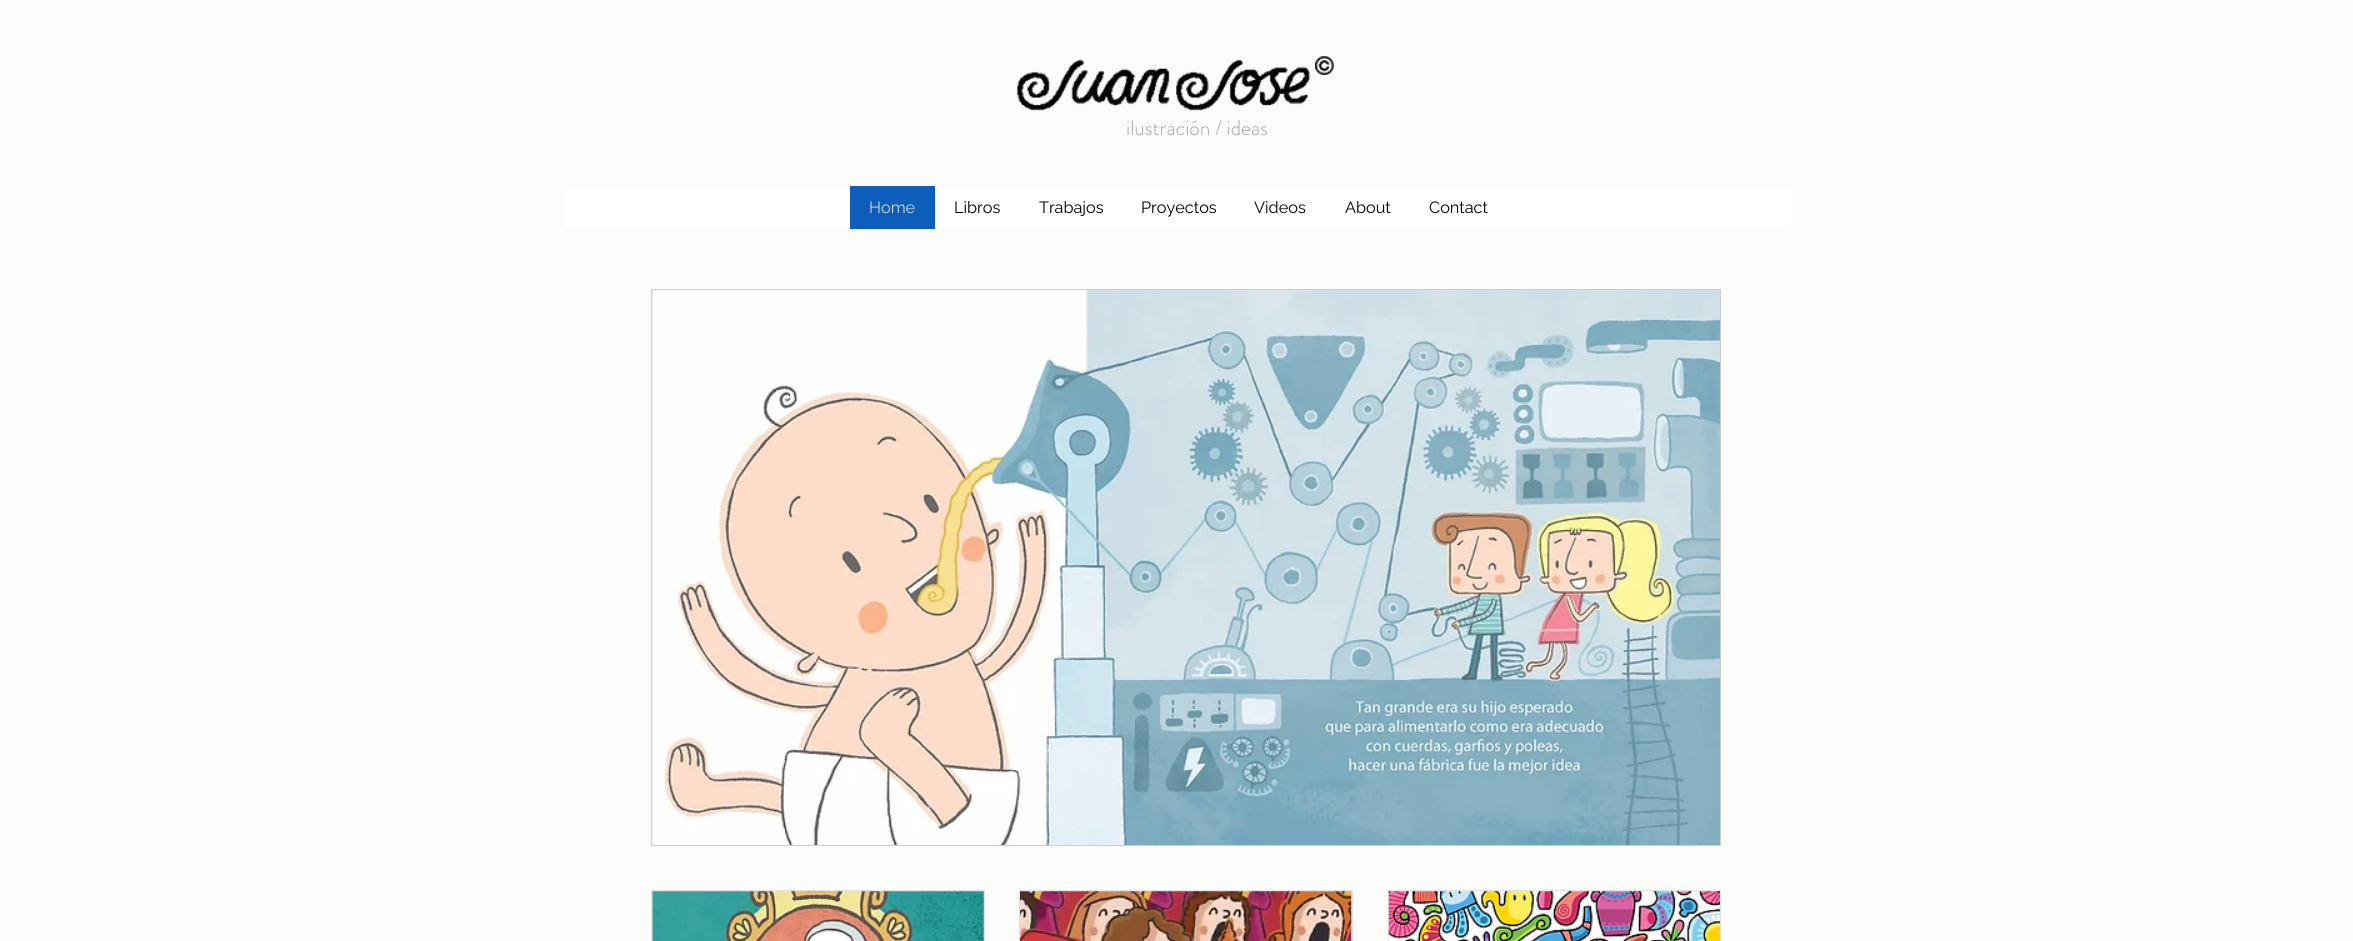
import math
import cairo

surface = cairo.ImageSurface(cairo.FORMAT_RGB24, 2353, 941)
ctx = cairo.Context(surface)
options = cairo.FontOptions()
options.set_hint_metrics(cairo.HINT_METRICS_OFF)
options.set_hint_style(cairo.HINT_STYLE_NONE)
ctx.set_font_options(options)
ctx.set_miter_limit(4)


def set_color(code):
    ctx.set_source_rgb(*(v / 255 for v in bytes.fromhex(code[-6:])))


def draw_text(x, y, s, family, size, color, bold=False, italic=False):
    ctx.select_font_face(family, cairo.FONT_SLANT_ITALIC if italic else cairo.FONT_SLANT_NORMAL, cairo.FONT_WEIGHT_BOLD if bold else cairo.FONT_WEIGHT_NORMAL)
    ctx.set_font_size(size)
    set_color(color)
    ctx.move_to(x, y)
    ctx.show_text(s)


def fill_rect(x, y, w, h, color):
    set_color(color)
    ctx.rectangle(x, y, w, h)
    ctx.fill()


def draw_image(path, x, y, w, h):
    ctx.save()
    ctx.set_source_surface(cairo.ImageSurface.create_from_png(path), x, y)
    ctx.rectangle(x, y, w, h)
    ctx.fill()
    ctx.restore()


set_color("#fcfcfa")
ctx.paint()
draw_image("assets/img1.png", 1016, 59, 295, 52)
draw_image("assets/img2.png", 1315, 56, 19, 19)
draw_text(1126, 135, "ilustración / ideas", "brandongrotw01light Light", 21.25, "#a6a6a6")
fill_rect(566, 186, 1225, 43, "#ffffff")
fill_rect(850, 186, 85, 43, "#0d5eba")
draw_text(869, 213, "Home", "Raleway", 16.25, "#d4d4d4")
draw_text(954, 213, "Libros", "Raleway", 16.25, "#000000")
draw_text(1039, 213, "Trabajos", "Raleway", 16.25, "#000000")
draw_text(1141, 213, "Proyectos", "Raleway", 16.25, "#000000")
draw_text(1254, 213, "Videos", "Raleway", 16.25, "#000000")
draw_text(1345, 213, "About", "Raleway", 16.25, "#000000")
draw_text(1429, 213, "Contact", "Raleway", 16.25, "#000000")
fill_rect(652, 290, 1, 555, "#e5e5e0")
ctx.rectangle(651.5, 289.5, 1069, 556)
set_color("#cececa")
ctx.set_line_width(1)
ctx.stroke()
draw_image("assets/img3.png", 652, 290, 1068, 555)
set_color("#ececeb")
ctx.rectangle(651.5, 890.5, 333, 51)
ctx.fill_preserve()
set_color("#e1e1e1")
ctx.stroke()
draw_image("assets/img4.png", 652, 891, 332, 50)
set_color("#ececeb")
ctx.rectangle(1019.5, 890.5, 333, 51)
ctx.fill_preserve()
set_color("#e1e1e1")
ctx.stroke()
draw_image("assets/img5.png", 1020, 891, 332, 50)
ctx.rectangle(1388.5, 890.5, 332, 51)
ctx.stroke()
draw_image("assets/img6.png", 1388, 891, 332, 50)
surface.write_to_png("output.png")
